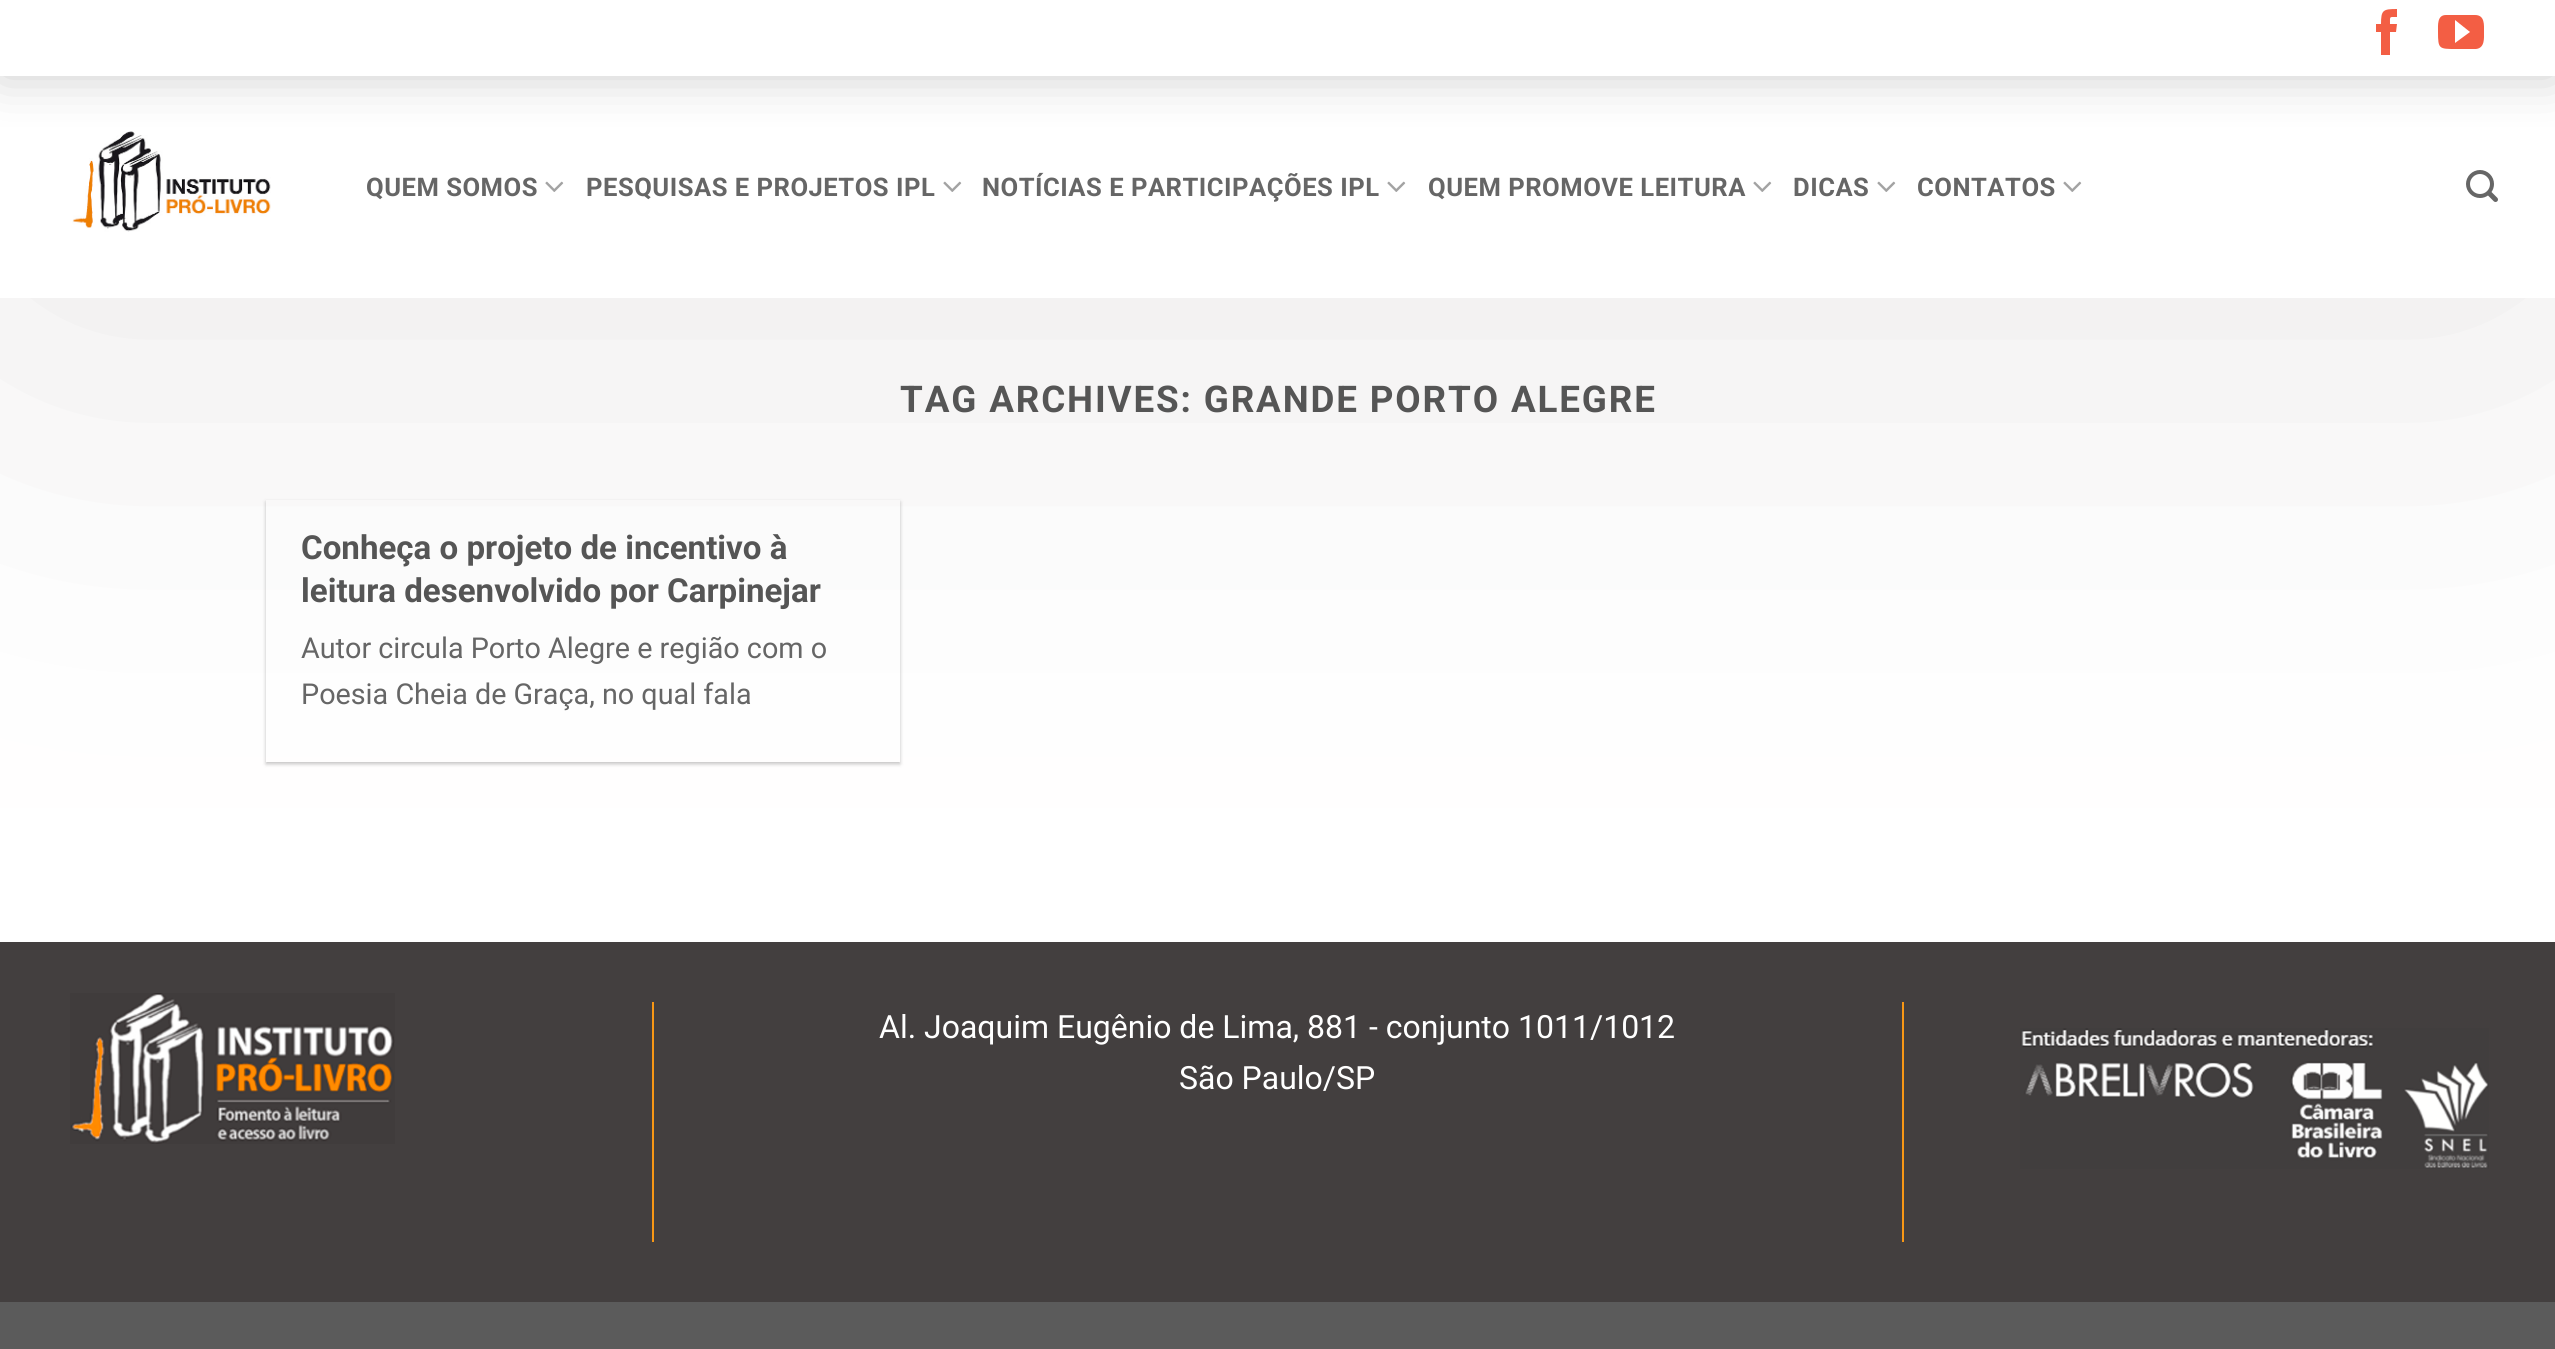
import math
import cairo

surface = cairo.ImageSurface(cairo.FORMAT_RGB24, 2555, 1349)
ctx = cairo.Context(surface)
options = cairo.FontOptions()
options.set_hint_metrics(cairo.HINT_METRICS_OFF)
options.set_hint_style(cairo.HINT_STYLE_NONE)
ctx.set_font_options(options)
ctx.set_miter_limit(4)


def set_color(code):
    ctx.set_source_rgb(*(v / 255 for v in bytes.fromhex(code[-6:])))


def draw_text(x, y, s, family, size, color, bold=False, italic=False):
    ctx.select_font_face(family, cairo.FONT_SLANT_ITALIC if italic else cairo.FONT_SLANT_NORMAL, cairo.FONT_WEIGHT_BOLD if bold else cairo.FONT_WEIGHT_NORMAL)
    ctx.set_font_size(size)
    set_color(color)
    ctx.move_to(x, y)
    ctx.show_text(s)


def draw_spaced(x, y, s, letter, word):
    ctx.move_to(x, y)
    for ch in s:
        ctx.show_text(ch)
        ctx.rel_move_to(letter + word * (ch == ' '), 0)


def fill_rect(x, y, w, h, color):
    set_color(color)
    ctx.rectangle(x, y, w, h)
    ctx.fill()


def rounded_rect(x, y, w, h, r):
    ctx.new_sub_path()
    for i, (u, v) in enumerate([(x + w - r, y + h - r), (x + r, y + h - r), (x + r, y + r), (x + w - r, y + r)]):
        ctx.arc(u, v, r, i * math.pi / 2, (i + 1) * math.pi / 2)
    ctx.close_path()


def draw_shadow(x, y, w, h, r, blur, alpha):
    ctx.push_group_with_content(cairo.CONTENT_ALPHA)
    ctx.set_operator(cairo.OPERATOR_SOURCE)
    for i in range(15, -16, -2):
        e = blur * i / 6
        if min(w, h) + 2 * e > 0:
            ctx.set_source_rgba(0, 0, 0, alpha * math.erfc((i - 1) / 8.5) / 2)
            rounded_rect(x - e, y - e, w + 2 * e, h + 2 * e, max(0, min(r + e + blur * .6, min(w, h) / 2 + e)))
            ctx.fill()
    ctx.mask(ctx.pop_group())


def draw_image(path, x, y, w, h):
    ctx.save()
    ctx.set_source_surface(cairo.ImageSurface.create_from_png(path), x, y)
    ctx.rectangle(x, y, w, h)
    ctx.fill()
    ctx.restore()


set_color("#5b5b5b")
ctx.paint()
fill_rect(0, 0, 2555, 942, "#ffffff")
fill_rect(0, 942, 2555, 360, "#433f3f")
fill_rect(652, 1002, 2, 240, "#f89715")
draw_image("assets/img4.png", 70, 993, 325, 151)
fill_rect(1902, 1002, 2, 240, "#f89715")
draw_image("assets/img5.png", 2020, 1028, 469, 141)
ctx.save()
ctx.rectangle(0, 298, 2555, 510)
ctx.clip()
set_color("#e7e5e5")
draw_shadow(0, 0, 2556, 298, 0, 250, 1)
ctx.restore()
draw_image("assets/img1.png", 72, 131, 199, 101)
ctx.save()
ctx.rectangle(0, 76, 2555, 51)
ctx.clip()
set_color("#cccccc")
draw_shadow(0, 0, 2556, 76, 0, 25, 1)
ctx.restore()
set_color("#f35e44")
ctx.new_path()
ctx.move_to(2390, 55)
ctx.line_to(2381, 55)
ctx.line_to(2381, 32)
ctx.line_to(2376, 32)
ctx.line_to(2376, 24)
ctx.line_to(2381, 24)
ctx.curve_to(2381, 10, 2383, 9, 2397, 9)
ctx.line_to(2397, 17)
ctx.curve_to(2389, 17, 2390, 16, 2390, 24)
ctx.line_to(2397, 24)
ctx.line_to(2396, 32)
ctx.line_to(2390, 32)
ctx.close_path()
ctx.fill()
ctx.new_path()
ctx.move_to(2475, 15)
ctx.line_to(2446, 15)
ctx.curve_to(2437, 15, 2438, 25, 2438, 32)
ctx.curve_to(2438, 49, 2439, 49, 2456, 49)
ctx.line_to(2476, 49)
ctx.curve_to(2485, 48, 2484, 38, 2484, 32)
ctx.curve_to(2484, 25, 2485, 15, 2475, 15)
ctx.close_path()
ctx.move_to(2455, 43)
ctx.line_to(2455, 20)
ctx.line_to(2470, 32)
ctx.close_path()
ctx.fill()
ctx.select_font_face("Roboto", cairo.FONT_SLANT_NORMAL, cairo.FONT_WEIGHT_BOLD)
ctx.set_font_size(25.6)
set_color("#666666")
draw_spaced(366, 196, "QUEM SOMOS", 0.5, 0)
draw_image("assets/img2.png", 545, 181, 19, 11)
draw_spaced(586, 196, "PESQUISAS E PROJETOS IPL", 0.5, 0)
draw_image("assets/img2.png", 943, 181, 19, 11)
draw_spaced(982, 196, "NOTÍCIAS E PARTICIPAÇÕES IPL", 0.5, 0)
draw_image("assets/img2.png", 1387, 181, 19, 11)
draw_spaced(1428, 196, "QUEM PROMOVE LEITURA", 0.5, 0)
draw_image("assets/img2.png", 1753, 181, 19, 11)
draw_spaced(1793, 196, "DICAS", 0.5, 0)
draw_image("assets/img2.png", 1877, 181, 19, 11)
draw_spaced(1917, 196, "CONTATOS", 0.5, 0)
draw_image("assets/img2.png", 2063, 181, 19, 11)
draw_image("assets/img3.png", 2466, 170, 32, 32)
ctx.set_font_size(36.8)
set_color("#555555")
draw_spaced(900, 412, "TAG ARCHIVES: GRANDE PORTO ALEGRE", 1.85, 0)
ctx.save()
ctx.set_fill_rule(cairo.FILL_RULE_EVEN_ODD)
ctx.new_path()
ctx.move_to(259, 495)
ctx.line_to(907, 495)
ctx.line_to(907, 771)
ctx.line_to(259, 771)
ctx.close_path()
ctx.move_to(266, 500)
ctx.line_to(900, 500)
ctx.line_to(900, 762)
ctx.line_to(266, 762)
ctx.close_path()
ctx.clip()
set_color("#000000")
draw_shadow(266, 502, 634, 262, 0, 2, 0.24)
ctx.restore()
draw_text(301, 559, "Conheça o projeto de incentivo à", "Roboto", 33.1, "#555555", bold=True)
draw_text(301, 602, "leitura desenvolvido por Carpinejar", "Roboto", 33.1, "#555555", bold=True)
draw_text(301, 658, "Autor circula Porto Alegre e região com o", "Roboto", 28.75, "#666666")
draw_text(301, 704, "Poesia Cheia de Graça, no qual fala", "Roboto", 28.75, "#666666")
draw_text(879, 1038, "Al. Joaquim Eugênio de Lima, 881 - conjunto 1011/1012", "Roboto", 32, "#ffffff")
draw_text(1179, 1089, "São Paulo/SP", "Roboto", 32, "#ffffff")
surface.write_to_png("output.png")
